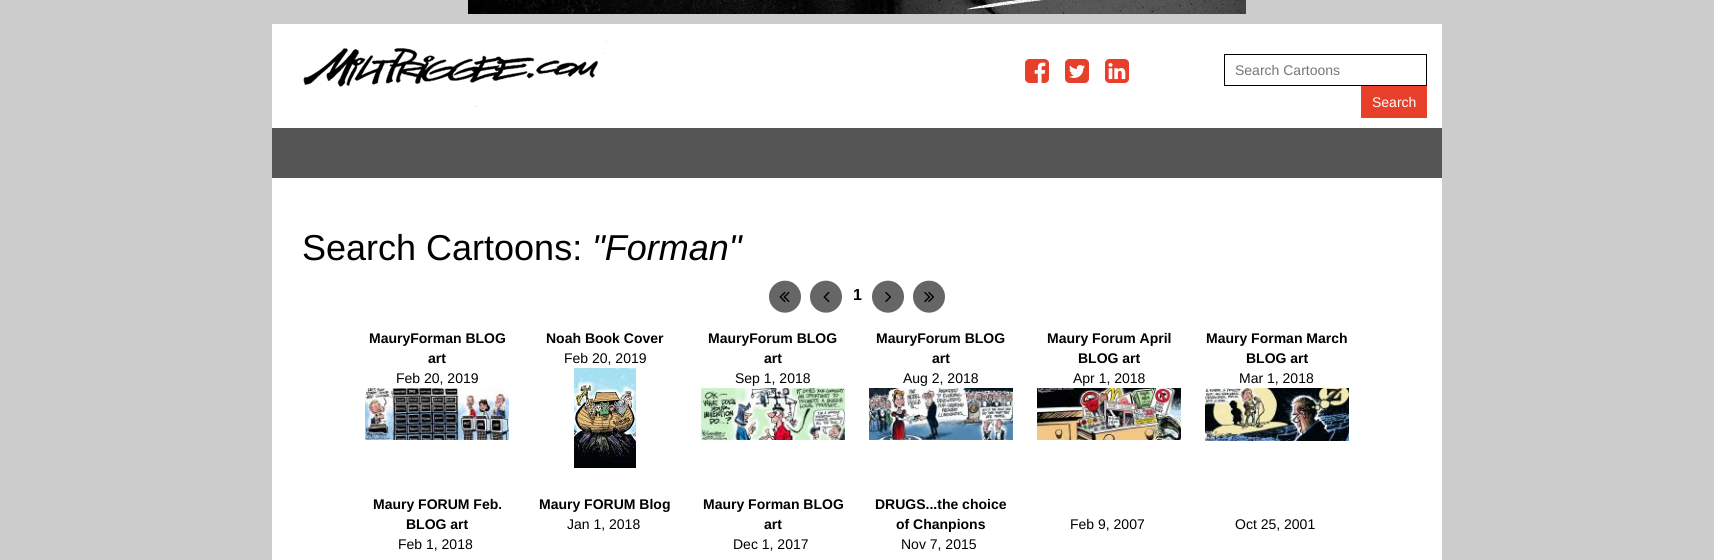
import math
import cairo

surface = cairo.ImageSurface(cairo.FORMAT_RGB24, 1714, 560)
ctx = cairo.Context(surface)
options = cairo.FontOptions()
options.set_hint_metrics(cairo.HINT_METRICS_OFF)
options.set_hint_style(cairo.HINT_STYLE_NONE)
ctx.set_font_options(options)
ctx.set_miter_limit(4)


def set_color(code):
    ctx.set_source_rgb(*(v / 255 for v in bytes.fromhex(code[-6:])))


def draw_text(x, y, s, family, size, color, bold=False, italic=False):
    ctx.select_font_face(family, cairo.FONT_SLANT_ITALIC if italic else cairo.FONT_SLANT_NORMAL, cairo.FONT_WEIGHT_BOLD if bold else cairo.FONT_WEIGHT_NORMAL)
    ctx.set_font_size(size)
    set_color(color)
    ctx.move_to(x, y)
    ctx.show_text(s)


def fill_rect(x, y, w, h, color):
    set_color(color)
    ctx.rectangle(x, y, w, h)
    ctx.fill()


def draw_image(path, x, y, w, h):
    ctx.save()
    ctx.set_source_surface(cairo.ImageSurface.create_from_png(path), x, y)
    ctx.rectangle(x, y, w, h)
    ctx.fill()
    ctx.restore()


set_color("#cccccc")
ctx.paint()
draw_image("assets/img1.png", 468, 0, 778, 14)
fill_rect(272, 24, 1170, 536, "#ffffff")
draw_image("assets/img2.png", 303, 41, 304, 66)
draw_image("assets/img3.png", 1025, 59, 24, 24)
draw_image("assets/img4.png", 1065, 59, 24, 24)
draw_image("assets/img5.png", 1105, 59, 24, 24)
ctx.rectangle(1224.5, 54.5, 202, 31)
set_color("#000000")
ctx.set_line_width(1)
ctx.stroke()
draw_text(1235, 75, "Search Cartoons", "Liberation Sans", 14, "#757575")
fill_rect(1361, 86, 66, 32, "#e73f2a")
draw_text(1372, 107, "Search", "Liberation Sans", 14, "#ffffff")
fill_rect(272, 128, 1170, 50, "#555555")
draw_text(302, 260, "Search Cartoons:", "Liberation Sans", 36, "#000000")
draw_text(592, 260, "\"Forman\"", "Liberation Sans", 36, "#000000", italic=True)
draw_image("assets/img6.png", 769, 280, 32, 33)
draw_image("assets/img7.png", 779, 291, 11, 12)
draw_image("assets/img6.png", 810, 280, 32, 33)
draw_image("assets/img8.png", 823, 291, 7, 12)
draw_text(853, 300, "1", "Liberation Sans", 16, "#000000", bold=True)
draw_image("assets/img6.png", 872, 280, 32, 33)
draw_image("assets/img9.png", 885, 292, 6, 10)
draw_image("assets/img6.png", 913, 280, 32, 33)
draw_image("assets/img10.png", 924, 292, 10, 10)
draw_text(369, 343, "MauryForman BLOG", "Liberation Sans", 14, "#000000", bold=True)
draw_text(428, 363, "art", "Liberation Sans", 14, "#000000", bold=True)
draw_text(396, 383, "Feb 20, 2019", "Liberation Sans", 14, "#000000")
draw_image("assets/img11.png", 365, 388, 144, 52)
draw_text(546, 343, "Noah Book Cover", "Liberation Sans", 14, "#000000", bold=True)
draw_text(564, 363, "Feb 20, 2019", "Liberation Sans", 14, "#000000")
draw_image("assets/img12.png", 574, 368, 62, 100)
draw_text(708, 343, "MauryForum BLOG", "Liberation Sans", 14, "#000000", bold=True)
draw_text(764, 363, "art", "Liberation Sans", 14, "#000000", bold=True)
draw_text(735, 383, "Sep 1, 2018", "Liberation Sans", 14, "#000000")
draw_image("assets/img13.png", 701, 388, 144, 52)
draw_text(876, 343, "MauryForum BLOG", "Liberation Sans", 14, "#000000", bold=True)
draw_text(932, 363, "art", "Liberation Sans", 14, "#000000", bold=True)
draw_text(903, 383, "Aug 2, 2018", "Liberation Sans", 14, "#000000")
draw_image("assets/img14.png", 869, 388, 144, 52)
draw_text(1047, 343, "Maury Forum April", "Liberation Sans", 14, "#000000", bold=True)
draw_text(1078, 363, "BLOG art", "Liberation Sans", 14, "#000000", bold=True)
draw_text(1073, 383, "Apr 1, 2018", "Liberation Sans", 14, "#000000")
draw_image("assets/img15.png", 1037, 388, 144, 52)
draw_text(1206, 343, "Maury Forman March", "Liberation Sans", 14, "#000000", bold=True)
draw_text(1246, 363, "BLOG art", "Liberation Sans", 14, "#000000", bold=True)
draw_text(1239, 383, "Mar 1, 2018", "Liberation Sans", 14, "#000000")
draw_image("assets/img16.png", 1205, 388, 144, 53)
draw_text(373, 509, "Maury FORUM Feb.", "Liberation Sans", 14, "#000000", bold=True)
draw_text(406, 529, "BLOG art", "Liberation Sans", 14, "#000000", bold=True)
draw_text(398, 549, "Feb 1, 2018", "Liberation Sans", 14, "#000000")
draw_text(539, 509, "Maury FORUM Blog", "Liberation Sans", 14, "#000000", bold=True)
draw_text(567, 529, "Jan 1, 2018", "Liberation Sans", 14, "#000000")
draw_text(703, 509, "Maury Forman BLOG", "Liberation Sans", 14, "#000000", bold=True)
draw_text(764, 529, "art", "Liberation Sans", 14, "#000000", bold=True)
draw_text(733, 549, "Dec 1, 2017", "Liberation Sans", 14, "#000000")
draw_text(875, 509, "DRUGS...the choice", "Liberation Sans", 14, "#000000", bold=True)
draw_text(896, 529, "of Chanpions", "Liberation Sans", 14, "#000000", bold=True)
draw_text(901, 549, "Nov 7, 2015", "Liberation Sans", 14, "#000000")
draw_text(1070, 529, "Feb 9, 2007", "Liberation Sans", 14, "#000000")
draw_text(1235, 529, "Oct 25, 2001", "Liberation Sans", 14, "#000000")
surface.write_to_png("output.png")
